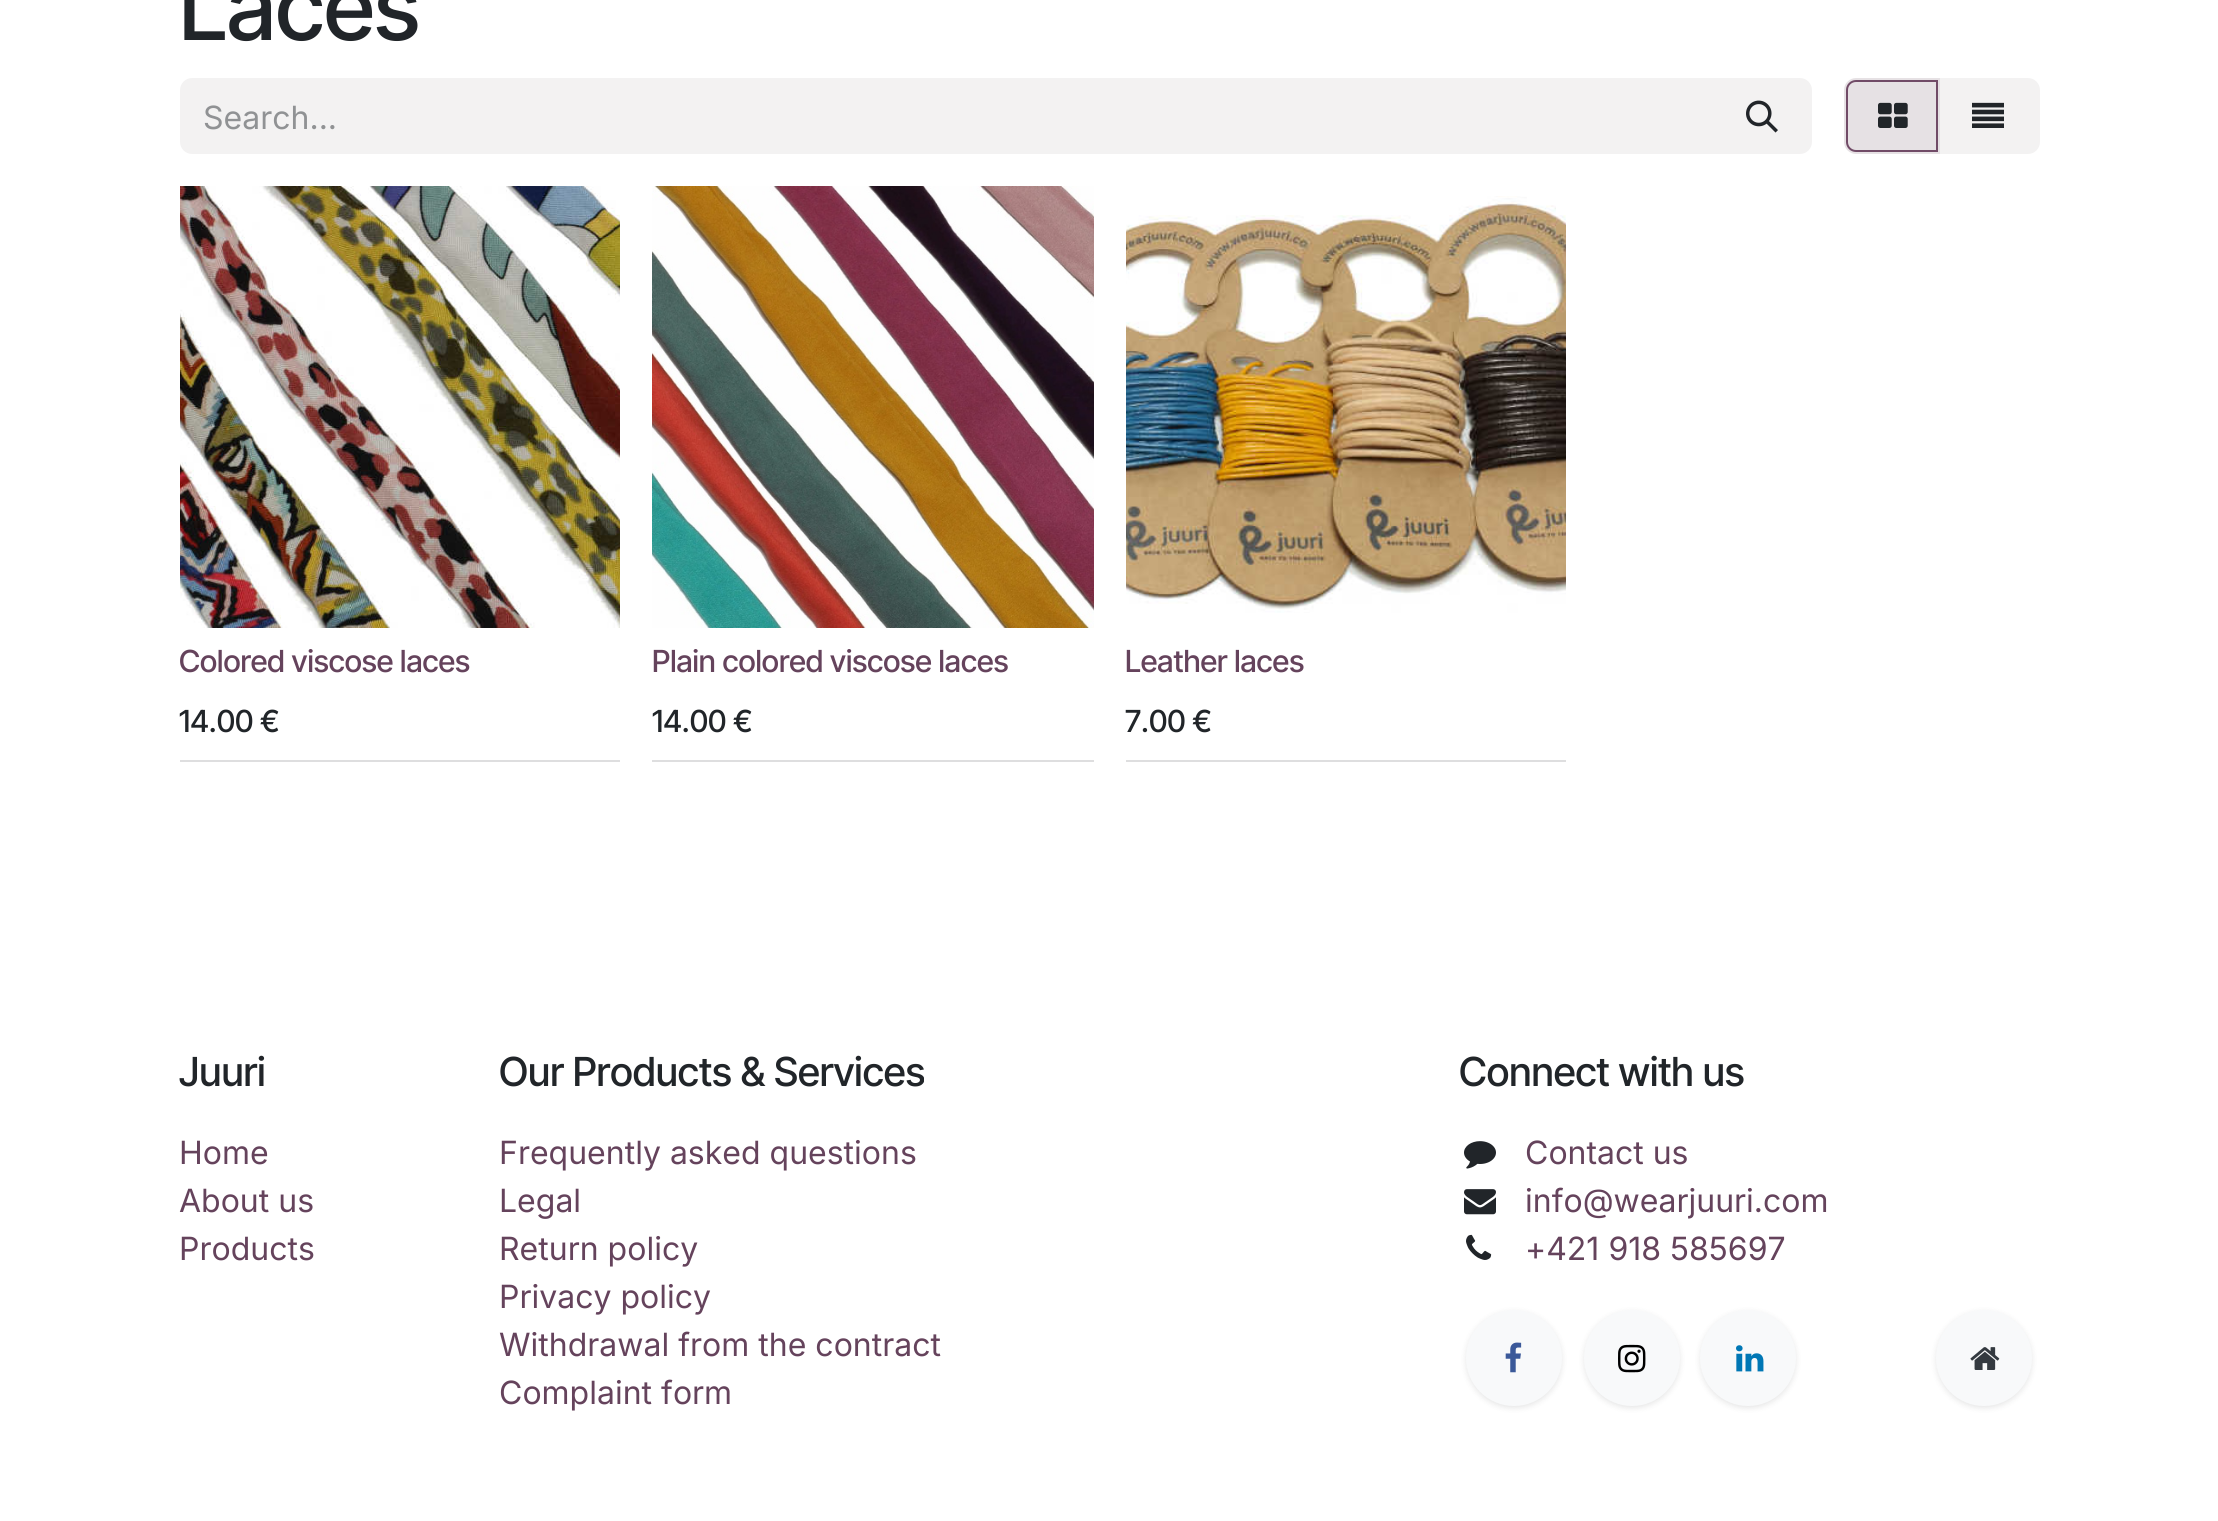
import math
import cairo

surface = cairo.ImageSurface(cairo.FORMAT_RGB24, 2218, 1521)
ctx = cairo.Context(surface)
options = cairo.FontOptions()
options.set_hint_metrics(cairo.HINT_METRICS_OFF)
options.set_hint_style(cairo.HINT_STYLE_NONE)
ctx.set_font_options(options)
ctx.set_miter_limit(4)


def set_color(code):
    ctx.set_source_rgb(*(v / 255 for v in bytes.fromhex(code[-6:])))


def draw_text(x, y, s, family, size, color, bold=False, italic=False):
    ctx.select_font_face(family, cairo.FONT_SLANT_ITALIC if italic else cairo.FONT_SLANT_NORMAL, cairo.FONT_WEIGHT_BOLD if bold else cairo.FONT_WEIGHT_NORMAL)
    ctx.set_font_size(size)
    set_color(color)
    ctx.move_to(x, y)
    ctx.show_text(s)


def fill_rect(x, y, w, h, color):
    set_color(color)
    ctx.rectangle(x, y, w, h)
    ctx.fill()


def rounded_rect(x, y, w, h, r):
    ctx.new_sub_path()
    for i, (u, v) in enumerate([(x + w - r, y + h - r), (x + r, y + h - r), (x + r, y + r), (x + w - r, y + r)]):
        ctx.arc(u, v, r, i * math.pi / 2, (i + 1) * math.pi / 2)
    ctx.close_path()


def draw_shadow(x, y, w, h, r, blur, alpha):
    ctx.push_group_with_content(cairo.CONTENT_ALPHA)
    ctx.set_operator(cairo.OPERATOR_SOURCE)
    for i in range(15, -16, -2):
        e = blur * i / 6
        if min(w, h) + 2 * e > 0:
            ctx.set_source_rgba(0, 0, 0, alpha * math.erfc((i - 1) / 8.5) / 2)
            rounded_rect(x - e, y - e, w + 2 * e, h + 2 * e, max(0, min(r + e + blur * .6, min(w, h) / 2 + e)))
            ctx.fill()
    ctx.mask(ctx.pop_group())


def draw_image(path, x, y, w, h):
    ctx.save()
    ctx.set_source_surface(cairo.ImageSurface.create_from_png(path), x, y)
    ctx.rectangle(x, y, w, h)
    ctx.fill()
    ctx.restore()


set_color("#ffffff")
ctx.paint()
draw_text(179, 40, "Laces", "Inter Tight Medium", 92, "#212529")
set_color("#f3f2f2")
ctx.new_path()
ctx.move_to(192, 78)
ctx.line_to(1714, 78)
ctx.line_to(1714, 154)
ctx.line_to(192, 154)
ctx.curve_to(185.5, 154, 180, 148.5, 180, 142)
ctx.line_to(180, 90)
ctx.curve_to(180, 83.5, 185.5, 78, 192, 78)
ctx.close_path()
ctx.fill()
draw_text(203, 129, "Search...", "Inter", 32, "#909294")
set_color("#f3f2f2")
ctx.new_path()
ctx.move_to(1713, 79)
ctx.line_to(1800, 79)
ctx.curve_to(1806, 79, 1811, 84, 1811, 90)
ctx.line_to(1811, 142)
ctx.curve_to(1811, 148, 1806, 153, 1800, 153)
ctx.line_to(1713, 153)
ctx.close_path()
ctx.fill_preserve()
ctx.stroke()
draw_image("assets/img1.png", 1746, 100, 32, 33)
ctx.new_path()
ctx.move_to(1939, 79)
ctx.line_to(2028, 79)
ctx.curve_to(2034, 79, 2039, 84, 2039, 90)
ctx.line_to(2039, 142)
ctx.curve_to(2039, 148, 2034, 153, 2028, 153)
ctx.line_to(1939, 153)
ctx.close_path()
ctx.fill_preserve()
ctx.stroke()
set_color("#e6e1e4")
ctx.new_path()
ctx.move_to(1856, 78)
ctx.line_to(1940, 78)
ctx.line_to(1940, 154)
ctx.line_to(1856, 154)
ctx.curve_to(1849.5, 154, 1844, 148.5, 1844, 142)
ctx.line_to(1844, 90)
ctx.curve_to(1844, 83.5, 1849.5, 78, 1856, 78)
ctx.close_path()
ctx.fill()
ctx.new_path()
ctx.move_to(1856, 81)
ctx.line_to(1937, 81)
ctx.line_to(1937, 151)
ctx.line_to(1856, 151)
ctx.curve_to(1851, 151, 1847, 147, 1847, 142)
ctx.line_to(1847, 90)
ctx.curve_to(1847, 85, 1851, 81, 1856, 81)
ctx.close_path()
set_color("#714b67")
ctx.stroke()
draw_image("assets/img2.png", 1878, 102, 30, 26)
draw_image("assets/img3.png", 1972, 102, 32, 26)
fill_rect(180, 760, 440, 2, "#dededf")
draw_image("assets/img4.png", 180, 186, 440, 442)
draw_text(179, 672, "Colored viscose laces", "Inter Tight Medium", 30.4, "#65435c")
draw_text(179, 732, "14.00 €", "Inter Tight Medium", 30.4, "#212529")
fill_rect(652, 760, 442, 2, "#dededf")
draw_image("assets/img5.png", 652, 186, 442, 442)
draw_text(652, 672, "Plain colored viscose laces", "Inter Tight Medium", 30.4, "#65435c")
draw_text(652, 732, "14.00 €", "Inter Tight Medium", 30.4, "#212529")
fill_rect(1126, 760, 440, 2, "#dededf")
draw_image("assets/img6.png", 1126, 196, 440, 417)
draw_text(1125, 672, "Leather laces", "Inter Tight Medium", 30.4, "#65435c")
draw_text(1125, 732, "7.00 €", "Inter Tight Medium", 30.4, "#212529")
draw_text(179, 1086, "Juuri", "Inter Tight Medium", 40, "#212529")
draw_text(179, 1164, "Home", "Inter", 32, "#65435c")
draw_text(179, 1212, "About us", "Inter", 32, "#65435c")
draw_text(179, 1260, "Products", "Inter", 32, "#65435c")
draw_text(499, 1086, "Our Products & Services", "Inter Tight Medium", 40, "#212529")
draw_text(499, 1164, "Frequently asked questions", "Inter", 32, "#65435c")
draw_text(499, 1212, "Legal", "Inter", 32, "#65435c")
draw_text(499, 1260, "Return policy", "Inter", 32, "#65435c")
draw_text(499, 1308, "Privacy policy", "Inter", 32, "#65435c")
draw_text(499, 1356, "Withdrawal from the contract", "Inter", 32, "#65435c")
draw_text(499, 1404, "Complaint form", "Inter", 32, "#65435c")
draw_text(1459, 1086, "Connect with us", "Inter Tight Medium", 40, "#212529")
draw_image("assets/img7.png", 1464, 1141, 32, 28)
draw_text(1525, 1164, "Contact us", "Inter", 32, "#65435c")
draw_image("assets/img8.png", 1464, 1189, 32, 26)
draw_text(1525, 1212, "info@wearjuuri.com", "Inter", 32, "#65435c")
draw_image("assets/img9.png", 1466, 1234, 26, 26)
draw_text(1525, 1260, "+421 918 585697", "Inter", 32, "#65435c")
set_color("#000000")
draw_shadow(1466, 1312, 96, 96, 48, 3, 0.1)
set_color("#f8f9fa")
ctx.arc(1514, 1358, 48, 0, 2 * math.pi)
ctx.fill()
draw_image("assets/img10.png", 1505, 1342, 17, 31)
set_color("#000000")
draw_shadow(1584, 1312, 96, 96, 48, 3, 0.1)
set_color("#f8f9fa")
ctx.arc(1632, 1358, 48, 0, 2 * math.pi)
ctx.fill()
draw_image("assets/img11.png", 1618, 1344, 28, 29)
set_color("#000000")
draw_shadow(1700, 1312, 96, 96, 48, 3, 0.1)
set_color("#f8f9fa")
ctx.arc(1748, 1358, 48, 0, 2 * math.pi)
ctx.fill()
draw_image("assets/img12.png", 1736, 1345, 28, 27)
set_color("#000000")
draw_shadow(1936, 1312, 96, 96, 48, 3, 0.1)
set_color("#f8f9fa")
ctx.arc(1984, 1358, 48, 0, 2 * math.pi)
ctx.fill()
draw_image("assets/img13.png", 1970, 1347, 30, 23)
surface.write_to_png("output.png")
